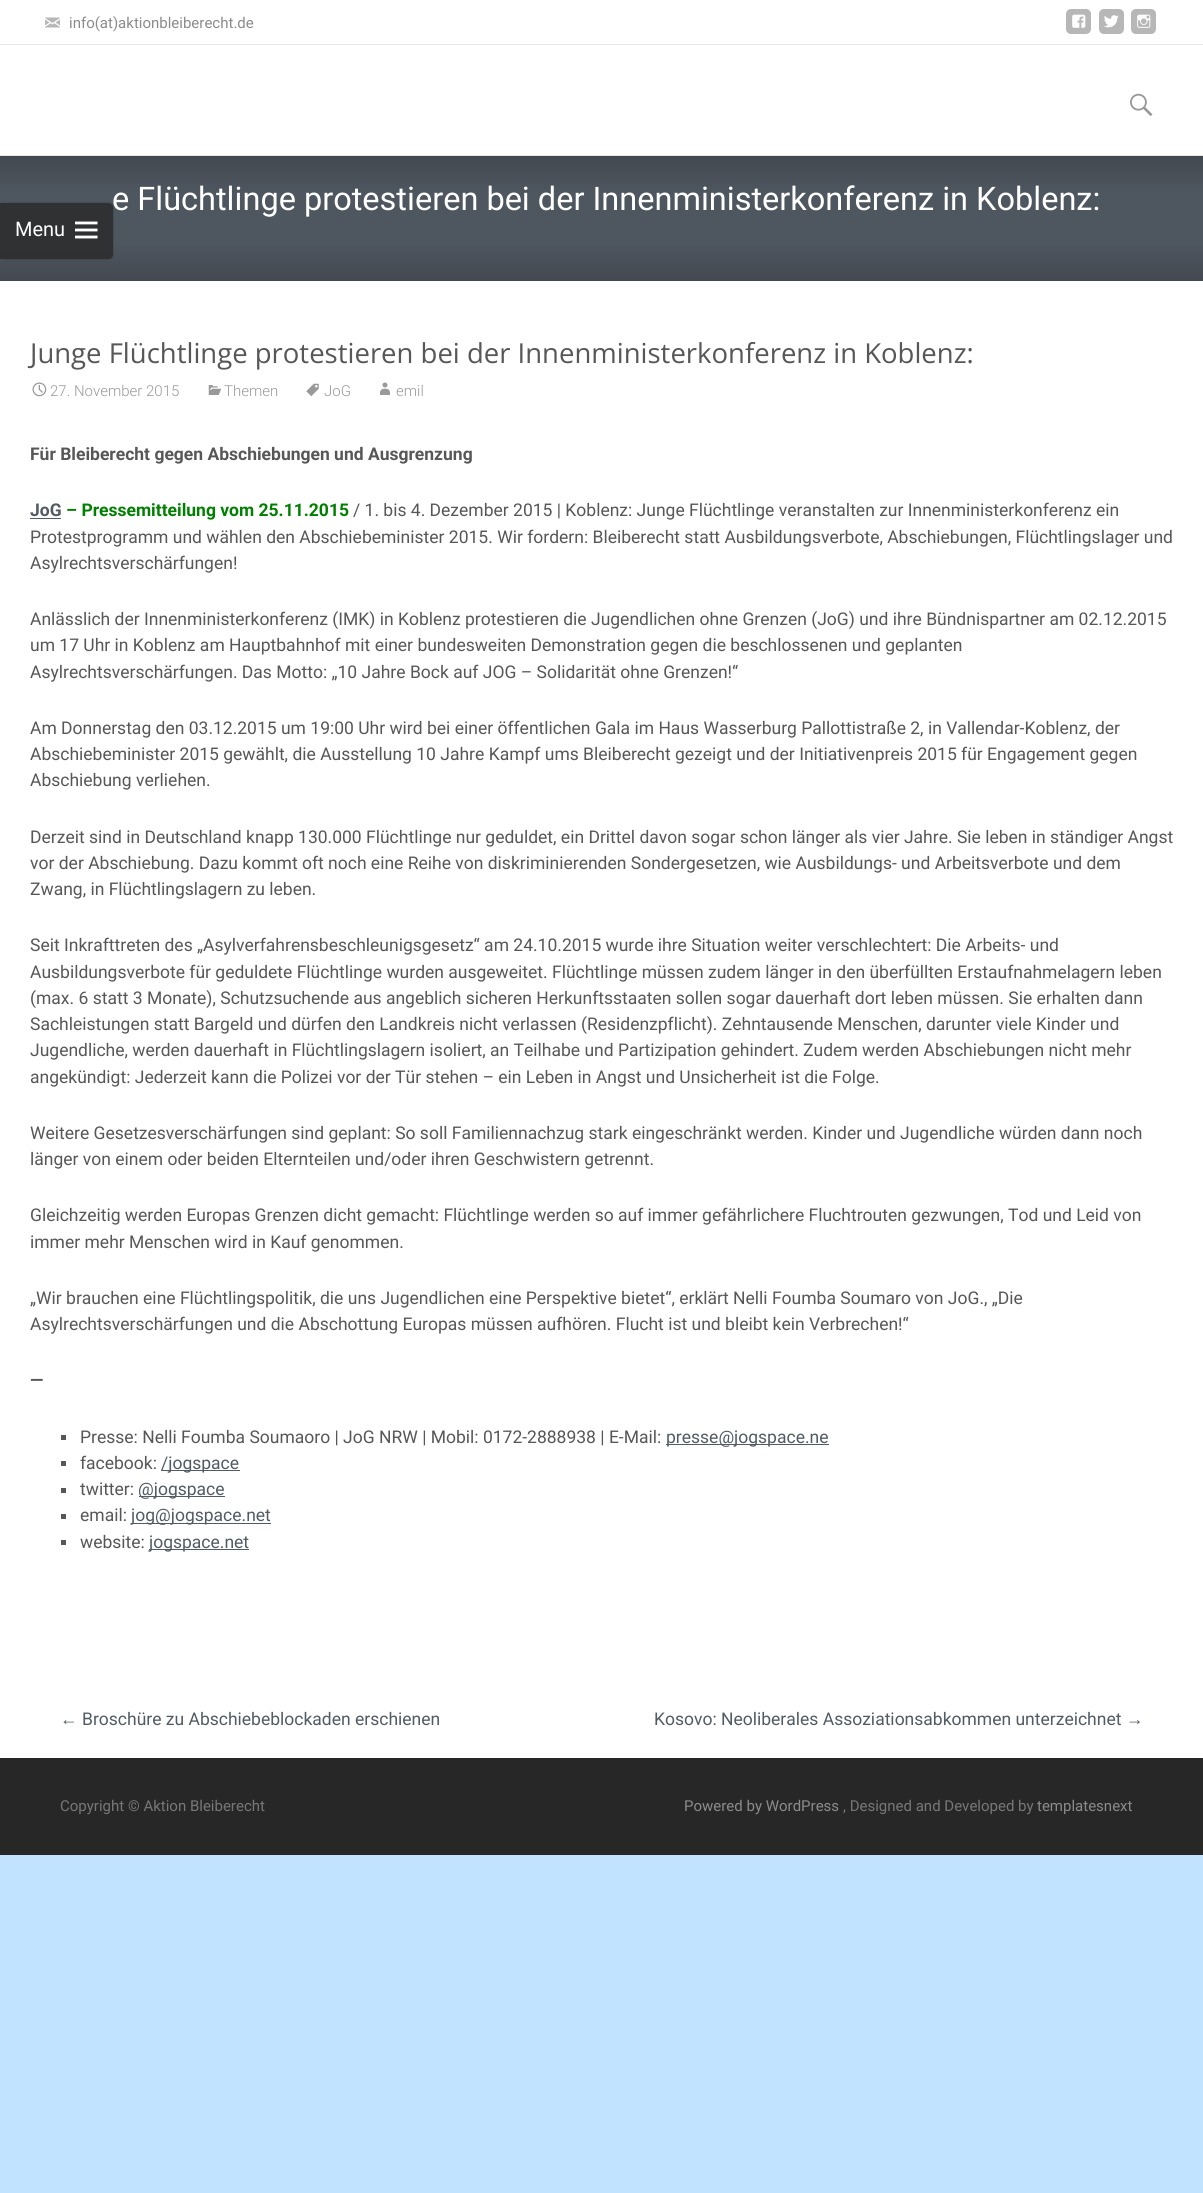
import math
import cairo

surface = cairo.ImageSurface(cairo.FORMAT_RGB24, 1203, 2193)
ctx = cairo.Context(surface)
options = cairo.FontOptions()
options.set_hint_metrics(cairo.HINT_METRICS_OFF)
options.set_hint_style(cairo.HINT_STYLE_NONE)
ctx.set_font_options(options)
ctx.set_miter_limit(4)


def set_color(code):
    ctx.set_source_rgb(*(v / 255 for v in bytes.fromhex(code[-6:])))


def draw_text(x, y, s, family, size, color, bold=False, italic=False):
    ctx.select_font_face(family, cairo.FONT_SLANT_ITALIC if italic else cairo.FONT_SLANT_NORMAL, cairo.FONT_WEIGHT_BOLD if bold else cairo.FONT_WEIGHT_NORMAL)
    ctx.set_font_size(size)
    set_color(color)
    ctx.move_to(x, y)
    ctx.show_text(s)


def fill_rect(x, y, w, h, color):
    set_color(color)
    ctx.rectangle(x, y, w, h)
    ctx.fill()


def rounded_rect(x, y, w, h, r):
    ctx.new_sub_path()
    for i, (u, v) in enumerate([(x + w - r, y + h - r), (x + r, y + h - r), (x + r, y + r), (x + w - r, y + r)]):
        ctx.arc(u, v, r, i * math.pi / 2, (i + 1) * math.pi / 2)
    ctx.close_path()


def draw_shadow(x, y, w, h, r, blur, alpha):
    ctx.push_group_with_content(cairo.CONTENT_ALPHA)
    ctx.set_operator(cairo.OPERATOR_SOURCE)
    for i in range(15, -16, -2):
        e = blur * i / 6
        if min(w, h) + 2 * e > 0:
            ctx.set_source_rgba(0, 0, 0, alpha * math.erfc((i - 1) / 8.5) / 2)
            rounded_rect(x - e, y - e, w + 2 * e, h + 2 * e, max(0, min(r + e + blur * .6, min(w, h) / 2 + e)))
            ctx.fill()
    ctx.mask(ctx.pop_group())


def draw_image(path, x, y, w, h):
    ctx.save()
    ctx.set_source_surface(cairo.ImageSurface.create_from_png(path), x, y)
    ctx.rectangle(x, y, w, h)
    ctx.fill()
    ctx.restore()


set_color("#c1e3ff")
ctx.paint()
fill_rect(0, 0, 1203, 1758, "#ffffff")
fill_rect(0, 44, 1203, 1, "#e7e7e7")
draw_image("assets/img1.png", 45, 17, 15, 11)
draw_text(69, 28, "info(at)aktionbleiberecht.de", "Roboto", 15, "#8b8b8b")
set_color("#b7b7b7")
rounded_rect(1066, 9, 25, 25, 5)
ctx.fill()
draw_image("assets/img2.png", 1072, 14, 14, 14)
rounded_rect(1099, 9, 25, 25, 5)
ctx.fill()
draw_image("assets/img3.png", 1104, 15, 15, 13)
rounded_rect(1131, 9, 25, 25, 5)
ctx.fill()
draw_image("assets/img4.png", 1137, 14, 14, 14)
gradient = cairo.LinearGradient(602, 156, 602, 281)
gradient.add_color_stop_rgba(0, 0.259, 0.286, 0.314, 1)
gradient.add_color_stop_rgba(0.3, 0.306, 0.337, 0.373, 1)
gradient.add_color_stop_rgba(0.69, 0.306, 0.337, 0.373, 1)
gradient.add_color_stop_rgba(1, 0.259, 0.286, 0.314, 1)
ctx.set_source(gradient)
ctx.rectangle(0, 156, 1203, 125)
ctx.fill()
draw_text(112, 210, "e Flüchtlinge protestieren bei der Innenministerkonferenz in Koblenz:", "Roboto", 32.5, "#ffffff")
fill_rect(0, 155, 1203, 1, "#e7e7e7")
draw_image("assets/img5.png", 1130, 93, 23, 24)
ctx.save()
ctx.set_fill_rule(cairo.FILL_RULE_EVEN_ODD)
ctx.new_path()
ctx.move_to(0, 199)
ctx.line_to(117, 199)
ctx.line_to(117, 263)
ctx.line_to(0, 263)
ctx.close_path()
ctx.move_to(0, 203)
ctx.line_to(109, 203)
ctx.curve_to(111, 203, 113, 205, 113, 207)
ctx.line_to(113, 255)
ctx.curve_to(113, 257, 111, 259, 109, 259)
ctx.line_to(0, 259)
ctx.close_path()
ctx.clip()
set_color("#323232")
draw_shadow(0, 203, 113, 56, 4, 1, 0.64)
ctx.restore()
ctx.set_source_rgba(0.157, 0.157, 0.157, 0.8)
ctx.new_path()
ctx.move_to(0, 203)
ctx.line_to(109, 203)
ctx.curve_to(111, 203, 113, 205, 113, 207)
ctx.line_to(113, 255)
ctx.curve_to(113, 257, 111, 259, 109, 259)
ctx.line_to(0, 259)
ctx.close_path()
ctx.fill()
draw_text(15, 236, "Menu", "Roboto", 20, "#ffffff")
draw_image("assets/img6.png", 75, 221, 23, 18)
draw_text(30, 363, "Junge Flüchtlinge protestieren bei der Innenministerkonferenz in Koblenz:", "Open Sans", 27.5, "#575757")
draw_image("assets/img7.png", 32, 382, 15, 15)
draw_text(50, 396, "27. November 2015", "Roboto Light", 15, "#999999")
draw_image("assets/img8.png", 208, 385, 14, 10)
draw_text(224, 396, "Themen", "Roboto Light", 15, "#999999")
draw_image("assets/img9.png", 306, 383, 13, 14)
draw_text(324, 396, "JoG", "Roboto Light", 15, "#999999")
draw_image("assets/img10.png", 380, 382, 10, 13)
draw_text(396, 396, "emil", "Roboto Light", 15, "#999999")
draw_text(30, 460, "Für Bleiberecht gegen Abschiebungen und Ausgrenzung", "Roboto", 17.5, "#575757", bold=True)
draw_text(30, 516, "JoG", "Roboto", 17.5, "#525b64", bold=True)
fill_rect(30, 518, 31, 1, "#525b64")
draw_text(66, 516, "– Pressemitteilung vom 25.11.2015", "Roboto", 17.5, "#008000", bold=True)
draw_text(353, 516, "/ 1. bis 4. Dezember 2015 | Koblenz: Junge Flüchtlinge veranstalten zur Innenministerkonferenz ein", "Roboto", 17.5, "#575757")
draw_text(30, 543, "Protestprogramm und wählen den Abschiebeminister 2015. Wir fordern: Bleiberecht statt Ausbildungsverbote, Abschiebungen, Flüchtlingslager und", "Roboto", 17.5, "#575757")
draw_text(30, 569, "Asylrechtsverschärfungen!", "Roboto", 17.5, "#575757")
draw_text(30, 625, "Anlässlich der Innenministerkonferenz (IMK) in Koblenz protestieren die Jugendlichen ohne Grenzen (JoG) und ihre Bündnispartner am 02.12.2015", "Roboto", 17.5, "#575757")
draw_text(30, 651, "um 17 Uhr in Koblenz am Hauptbahnhof mit einer bundesweiten Demonstration gegen die beschlossenen und geplanten", "Roboto", 17.5, "#575757")
draw_text(30, 678, "Asylrechtsverschärfungen. Das Motto: „10 Jahre Bock auf JOG – Solidarität ohne Grenzen!“", "Roboto", 17.5, "#575757")
draw_text(30, 734, "Am Donnerstag den 03.12.2015 um 19:00 Uhr wird bei einer öffentlichen Gala im Haus Wasserburg Pallottistraße 2, in Vallendar-Koblenz, der", "Roboto", 17.5, "#575757")
draw_text(30, 760, "Abschiebeminister 2015 gewählt, die Ausstellung 10 Jahre Kampf ums Bleiberecht gezeigt und der Initiativenpreis 2015 für Engagement gegen", "Roboto", 17.5, "#575757")
draw_text(30, 786, "Abschiebung verliehen.", "Roboto", 17.5, "#575757")
draw_text(30, 843, "Derzeit sind in Deutschland knapp 130.000 Flüchtlinge nur geduldet, ein Drittel davon sogar schon länger als vier Jahre. Sie leben in ständiger Angst", "Roboto", 17.5, "#575757")
draw_text(30, 869, "vor der Abschiebung. Dazu kommt oft noch eine Reihe von diskriminierenden Sondergesetzen, wie Ausbildungs- und Arbeitsverbote und dem", "Roboto", 17.5, "#575757")
draw_text(30, 895, "Zwang, in Flüchtlingslagern zu leben.", "Roboto", 17.5, "#575757")
draw_text(30, 951, "Seit Inkrafttreten des „Asylverfahrensbeschleunigsgesetz“ am 24.10.2015 wurde ihre Situation weiter verschlechtert: Die Arbeits- und", "Roboto", 17.5, "#575757")
draw_text(30, 978, "Ausbildungsverbote für geduldete Flüchtlinge wurden ausgeweitet. Flüchtlinge müssen zudem länger in den überfüllten Erstaufnahmelagern leben", "Roboto", 17.5, "#575757")
draw_text(30, 1004, "(max. 6 statt 3 Monate), Schutzsuchende aus angeblich sicheren Herkunftsstaaten sollen sogar dauerhaft dort leben müssen. Sie erhalten dann", "Roboto", 17.5, "#575757")
draw_text(30, 1030, "Sachleistungen statt Bargeld und dürfen den Landkreis nicht verlassen (Residenzpflicht). Zehntausende Menschen, darunter viele Kinder und", "Roboto", 17.5, "#575757")
draw_text(30, 1056, "Jugendliche, werden dauerhaft in Flüchtlingslagern isoliert, an Teilhabe und Partizipation gehindert. Zudem werden Abschiebungen nicht mehr", "Roboto", 17.5, "#575757")
draw_text(30, 1083, "angekündigt: Jederzeit kann die Polizei vor der Tür stehen – ein Leben in Angst und Unsicherheit ist die Folge.", "Roboto", 17.5, "#575757")
draw_text(30, 1139, "Weitere Gesetzesverschärfungen sind geplant: So soll Familiennachzug stark eingeschränkt werden. Kinder und Jugendliche würden dann noch", "Roboto", 17.5, "#575757")
draw_text(30, 1165, "länger von einem oder beiden Elternteilen und/oder ihren Geschwistern getrennt.", "Roboto", 17.5, "#575757")
draw_text(30, 1221, "Gleichzeitig werden Europas Grenzen dicht gemacht: Flüchtlinge werden so auf immer gefährlichere Fluchtrouten gezwungen, Tod und Leid von", "Roboto", 17.5, "#575757")
draw_text(30, 1248, "immer mehr Menschen wird in Kauf genommen.", "Roboto", 17.5, "#575757")
draw_text(30, 1304, "„Wir brauchen eine Flüchtlingspolitik, die uns Jugendlichen eine Perspektive bietet“, erklärt Nelli Foumba Soumaro von JoG., „Die", "Roboto", 17.5, "#575757")
draw_text(30, 1330, "Asylrechtsverschärfungen und die Abschottung Europas müssen aufhören. Flucht ist und bleibt kein Verbrechen!“", "Roboto", 17.5, "#575757")
draw_text(30, 1386, "—", "Roboto", 17.5, "#575757", bold=True)
fill_rect(61, 1435, 5, 5, "#575757")
draw_text(80, 1443, "Presse: Nelli Foumba Soumaoro | JoG NRW | Mobil: 0172-2888938 | E-Mail:", "Roboto", 17.5, "#575757")
fill_rect(666, 1444, 163, 1, "#525b64")
draw_text(666, 1443, "presse@jogspace.ne", "Roboto", 17.5, "#525b64")
fill_rect(61, 1461, 5, 5, "#575757")
draw_text(80, 1469, "facebook:", "Roboto", 17.5, "#575757")
fill_rect(161, 1470, 79, 1, "#525b64")
draw_text(161, 1469, "/jogspace", "Roboto", 17.5, "#525b64")
fill_rect(61, 1488, 5, 5, "#575757")
draw_text(80, 1495, "twitter:", "Roboto", 17.5, "#575757")
fill_rect(139, 1496, 86, 1, "#525b64")
draw_text(138, 1495, "@jogspace", "Roboto", 17.5, "#525b64")
fill_rect(61, 1514, 5, 5, "#575757")
draw_text(80, 1521, "email:", "Roboto", 17.5, "#575757")
fill_rect(131, 1523, 140, 1, "#525b64")
draw_text(131, 1521, "jog@jogspace.net", "Roboto", 17.5, "#525b64")
fill_rect(61, 1540, 5, 5, "#575757")
draw_text(80, 1548, "website:", "Roboto", 17.5, "#575757")
fill_rect(149, 1549, 100, 1, "#525b64")
draw_text(149, 1548, "jogspace.net", "Roboto", 17.5, "#525b64")
draw_text(60, 1725, "←", "Liberation Sans", 17.5, "#525b64")
draw_text(82, 1725, "Broschüre zu Abschiebeblockaden erschienen", "Roboto", 17.5, "#525b64")
draw_text(654, 1725, "Kosovo: Neoliberales Assoziationsabkommen unterzeichnet", "Roboto", 17.5, "#525b64")
draw_text(1126, 1725, "→", "Liberation Sans", 17.5, "#525b64")
fill_rect(0, 1758, 1203, 97, "#272727")
draw_text(60, 1811, "Copyright © Aktion Bleiberecht", "Roboto", 15, "#777777")
draw_text(684, 1811, "Powered by WordPress", "Roboto", 15, "#8b8b8b")
draw_text(843, 1811, ", Designed and Developed by", "Roboto", 15, "#777777")
draw_text(1037, 1811, "templatesnext", "Roboto", 15, "#8b8b8b")
surface.write_to_png("output.png")
